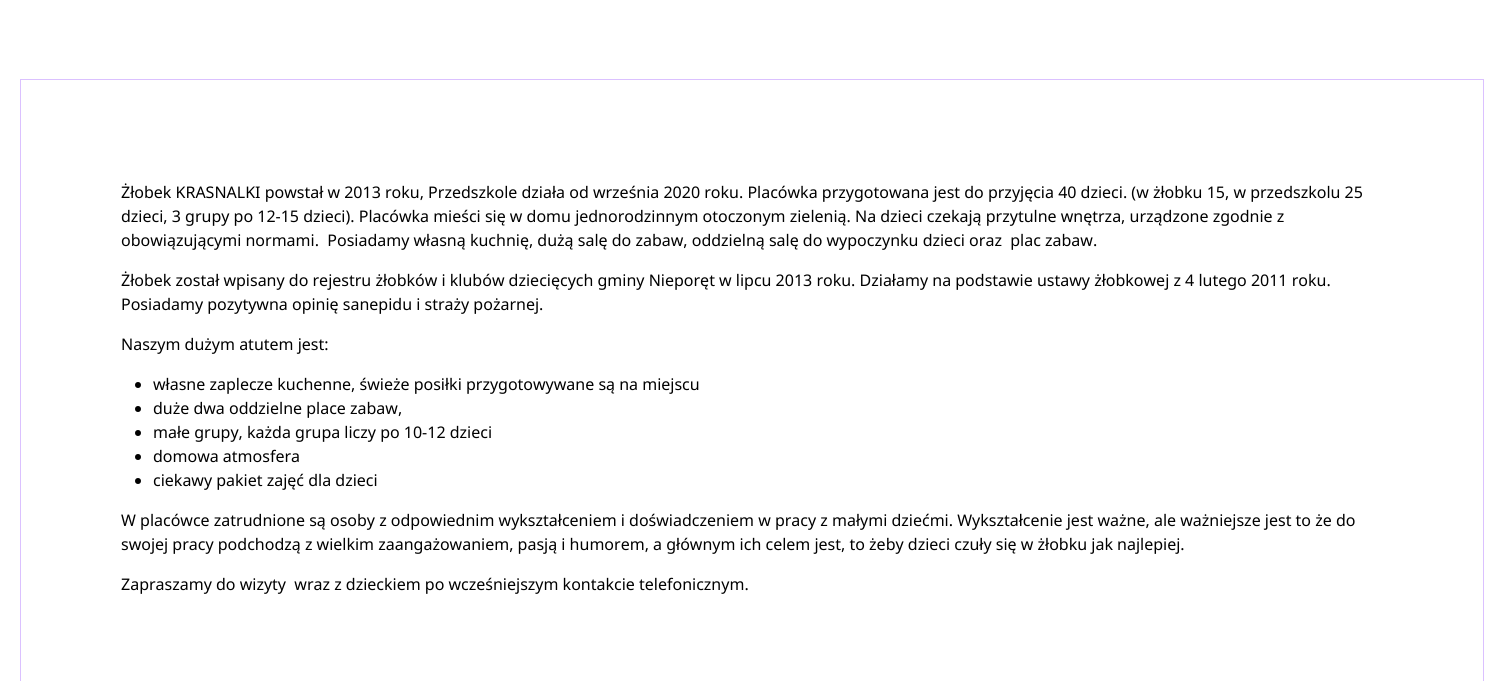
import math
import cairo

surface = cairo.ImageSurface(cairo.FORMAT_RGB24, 1504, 681)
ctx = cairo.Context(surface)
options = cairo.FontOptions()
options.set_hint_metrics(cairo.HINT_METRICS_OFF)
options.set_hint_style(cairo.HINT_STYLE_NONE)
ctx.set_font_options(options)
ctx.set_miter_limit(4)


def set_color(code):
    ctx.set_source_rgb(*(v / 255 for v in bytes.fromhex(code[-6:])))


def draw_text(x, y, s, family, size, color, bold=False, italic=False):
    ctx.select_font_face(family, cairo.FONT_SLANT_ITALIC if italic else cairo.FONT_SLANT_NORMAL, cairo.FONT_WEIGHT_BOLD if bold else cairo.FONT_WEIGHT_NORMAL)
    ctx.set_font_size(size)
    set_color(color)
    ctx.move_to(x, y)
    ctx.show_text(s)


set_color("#ffffff")
ctx.paint()
ctx.rectangle(20.5, 79.5, 1463, 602)
set_color("#dbc1ff")
ctx.set_line_width(1)
ctx.stroke()
draw_text(121, 198, "Żłobek KRASNALKI powstał w 2013 roku, Przedszkole działa od września 2020 roku. Placówka przygotowana jest do przyjęcia 40 dzieci. (w żłobku 15, w przedszkolu 25", "Noto Sans", 16, "#000000")
draw_text(121, 222, "dzieci, 3 grupy po 12-15 dzieci). Placówka mieści się w domu jednorodzinnym otoczonym zielenią. Na dzieci czekają przytulne wnętrza, urządzone zgodnie z", "Noto Sans", 16, "#000000")
draw_text(121, 246, "obowiązującymi normami.  Posiadamy własną kuchnię, dużą salę do zabaw, oddzielną salę do wypoczynku dzieci oraz  plac zabaw.", "Noto Sans", 16, "#000000")
draw_text(121, 286, "Żłobek został wpisany do rejestru żłobków i klubów dziecięcych gminy Nieporęt w lipcu 2013 roku. Działamy na podstawie ustawy żłobkowej z 4 lutego 2011 roku.", "Noto Sans", 16, "#000000")
draw_text(121, 310, "Posiadamy pozytywna opinię sanepidu i straży pożarnej.", "Noto Sans", 16, "#000000")
draw_text(121, 350, "Naszym dużym atutem jest:", "Noto Sans", 16, "#000000")
ctx.new_path()
ctx.arc(138, 385, 3, 0, 2 * math.pi)
ctx.fill()
draw_text(153, 390, "własne zaplecze kuchenne, świeże posiłki przygotowywane są na miejscu", "Noto Sans", 16, "#000000")
ctx.new_path()
ctx.arc(138, 409, 3, 0, 2 * math.pi)
ctx.fill()
draw_text(153, 414, "duże dwa oddzielne place zabaw,", "Noto Sans", 16, "#000000")
ctx.new_path()
ctx.arc(138, 433, 3, 0, 2 * math.pi)
ctx.fill()
draw_text(153, 438, "małe grupy, każda grupa liczy po 10-12 dzieci", "Noto Sans", 16, "#000000")
ctx.new_path()
ctx.arc(138, 457, 3, 0, 2 * math.pi)
ctx.fill()
draw_text(153, 462, "domowa atmosfera", "Noto Sans", 16, "#000000")
ctx.new_path()
ctx.arc(138, 481, 3, 0, 2 * math.pi)
ctx.fill()
draw_text(153, 486, "ciekawy pakiet zajęć dla dzieci", "Noto Sans", 16, "#000000")
draw_text(121, 526, "W placówce zatrudnione są osoby z odpowiednim wykształceniem i doświadczeniem w pracy z małymi dziećmi. Wykształcenie jest ważne, ale ważniejsze jest to że do", "Noto Sans", 16, "#000000")
draw_text(121, 550, "swojej pracy podchodzą z wielkim zaangażowaniem, pasją i humorem, a głównym ich celem jest, to żeby dzieci czuły się w żłobku jak najlepiej.", "Noto Sans", 16, "#000000")
draw_text(121, 590, "Zapraszamy do wizyty  wraz z dzieckiem po wcześniejszym kontakcie telefonicznym.", "Noto Sans", 16, "#000000")
surface.write_to_png("output.png")
